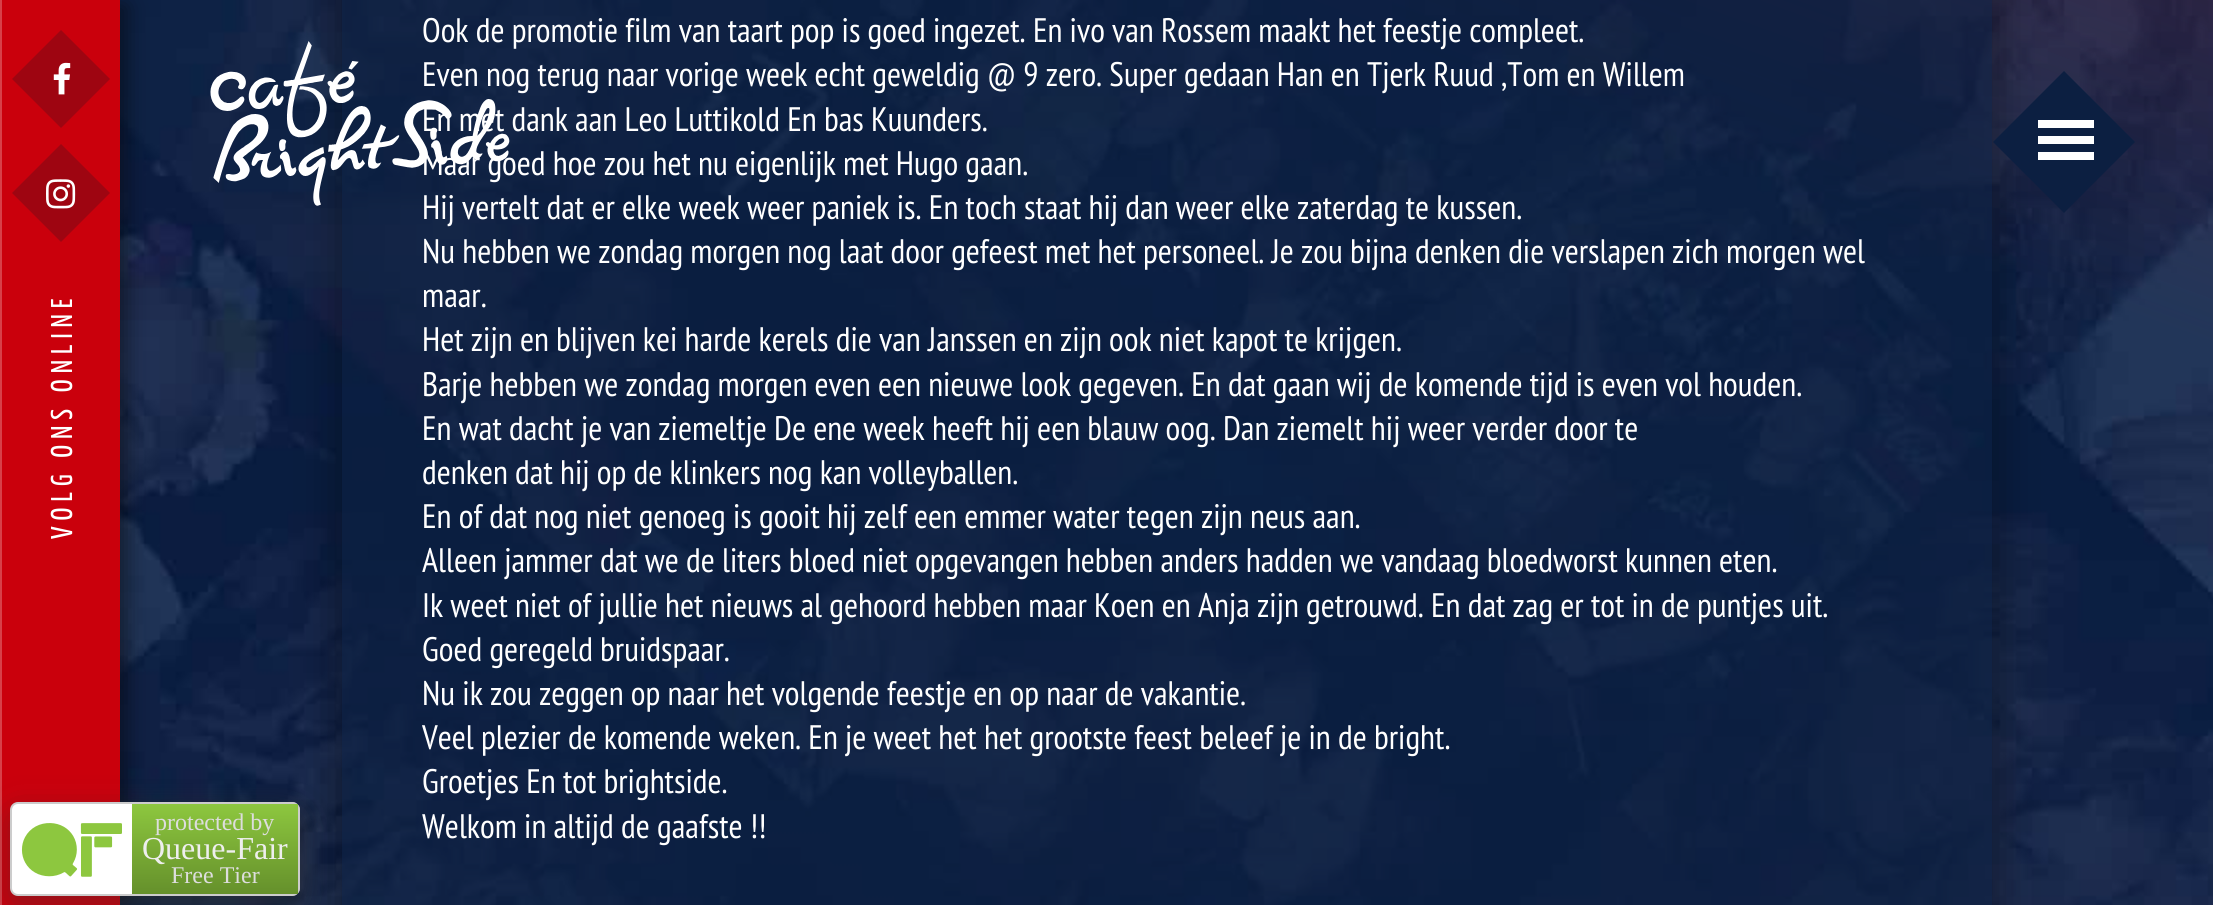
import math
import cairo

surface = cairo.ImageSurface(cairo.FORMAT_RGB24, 2213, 905)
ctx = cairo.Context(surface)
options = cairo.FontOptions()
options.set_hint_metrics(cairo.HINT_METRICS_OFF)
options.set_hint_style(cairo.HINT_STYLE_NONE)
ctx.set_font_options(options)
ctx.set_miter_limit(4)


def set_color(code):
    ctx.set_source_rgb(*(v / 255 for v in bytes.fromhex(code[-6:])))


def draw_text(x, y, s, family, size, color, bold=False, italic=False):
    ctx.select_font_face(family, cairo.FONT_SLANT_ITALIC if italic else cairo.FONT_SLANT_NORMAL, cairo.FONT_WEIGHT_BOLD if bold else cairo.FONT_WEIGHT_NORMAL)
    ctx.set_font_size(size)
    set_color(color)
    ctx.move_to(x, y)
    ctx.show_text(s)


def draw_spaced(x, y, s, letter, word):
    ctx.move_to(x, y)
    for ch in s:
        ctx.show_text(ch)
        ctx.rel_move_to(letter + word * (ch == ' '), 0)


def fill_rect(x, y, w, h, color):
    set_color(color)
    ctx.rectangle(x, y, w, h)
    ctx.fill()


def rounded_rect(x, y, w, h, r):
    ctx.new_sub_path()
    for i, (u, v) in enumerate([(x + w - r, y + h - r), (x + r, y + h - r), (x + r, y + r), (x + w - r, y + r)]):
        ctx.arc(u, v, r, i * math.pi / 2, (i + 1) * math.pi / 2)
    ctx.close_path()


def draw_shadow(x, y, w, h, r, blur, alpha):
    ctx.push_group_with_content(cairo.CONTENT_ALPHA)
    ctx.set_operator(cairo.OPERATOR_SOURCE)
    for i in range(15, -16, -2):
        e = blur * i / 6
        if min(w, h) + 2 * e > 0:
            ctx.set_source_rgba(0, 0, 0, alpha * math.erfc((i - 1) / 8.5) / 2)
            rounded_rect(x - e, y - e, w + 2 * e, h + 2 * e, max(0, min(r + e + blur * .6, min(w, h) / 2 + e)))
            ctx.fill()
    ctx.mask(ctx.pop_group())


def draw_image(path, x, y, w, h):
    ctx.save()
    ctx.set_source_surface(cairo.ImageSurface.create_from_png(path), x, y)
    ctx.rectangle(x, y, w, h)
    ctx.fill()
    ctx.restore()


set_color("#ffffff")
ctx.paint()
draw_image("assets/img1.png", 120, 0, 2093, 905)
ctx.save()
ctx.set_fill_rule(cairo.FILL_RULE_EVEN_ODD)
ctx.new_path()
ctx.move_to(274, 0)
ctx.line_to(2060, 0)
ctx.line_to(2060, 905)
ctx.line_to(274, 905)
ctx.close_path()
ctx.move_to(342, -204)
ctx.line_to(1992, -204)
ctx.line_to(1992, 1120)
ctx.line_to(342, 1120)
ctx.close_path()
ctx.clip()
set_color("#000000")
draw_shadow(338, -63, 1658, 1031, 0, 21, 0.38)
ctx.restore()
ctx.set_source_rgba(0.047, 0.122, 0.255, 0.55)
ctx.rectangle(342, 0, 1650, 905)
ctx.fill()
draw_text(422, 42, "Ook de promotie film van taart pop is goed ingezet. En ivo van Rossem maakt het feestje compleet.", "PT Sans Narrow", 34, "#ffffff")
draw_text(422, 86, "Even nog terug naar vorige week echt geweldig @ 9 zero. Super gedaan Han en Tjerk Ruud ,Tom en Willem", "PT Sans Narrow", 34, "#ffffff")
draw_text(422, 131, "En met dank aan Leo Luttikold En bas Kuunders.", "PT Sans Narrow", 34, "#ffffff")
draw_text(422, 175, "Maar goed hoe zou het nu eigenlijk met Hugo gaan.", "PT Sans Narrow", 34, "#ffffff")
draw_text(422, 219, "Hij vertelt dat er elke week weer paniek is. En toch staat hij dan weer elke zaterdag te kussen.", "PT Sans Narrow", 34, "#ffffff")
draw_image("assets/img2.png", 210, 41, 300, 165)
draw_text(422, 263, "Nu hebben we zondag morgen nog laat door gefeest met het personeel. Je zou bijna denken die verslapen zich morgen wel", "PT Sans Narrow", 34, "#ffffff")
draw_text(422, 307, "maar.", "PT Sans Narrow", 34, "#ffffff")
draw_text(422, 351, "Het zijn en blijven kei harde kerels die van Janssen en zijn ook niet kapot te krijgen.", "PT Sans Narrow", 34, "#ffffff")
draw_text(422, 396, "Barje hebben we zondag morgen even een nieuwe look gegeven. En dat gaan wij de komende tijd is even vol houden.", "PT Sans Narrow", 34, "#ffffff")
draw_text(422, 440, "En wat dacht je van ziemeltje De ene week heeft hij een blauw oog. Dan ziemelt hij weer verder door te", "PT Sans Narrow", 34, "#ffffff")
draw_text(422, 484, "denken dat hij op de klinkers nog kan volleyballen.", "PT Sans Narrow", 34, "#ffffff")
draw_text(422, 528, "En of dat nog niet genoeg is gooit hij zelf een emmer water tegen zijn neus aan.", "PT Sans Narrow", 34, "#ffffff")
draw_text(422, 572, "Alleen jammer dat we de liters bloed niet opgevangen hebben anders hadden we vandaag bloedworst kunnen eten.", "PT Sans Narrow", 34, "#ffffff")
draw_text(422, 617, "Ik weet niet of jullie het nieuws al gehoord hebben maar Koen en Anja zijn getrouwd. En dat zag er tot in de puntjes uit.", "PT Sans Narrow", 34, "#ffffff")
draw_text(422, 661, "Goed geregeld bruidspaar.", "PT Sans Narrow", 34, "#ffffff")
draw_text(422, 705, "Nu ik zou zeggen op naar het volgende feestje en op naar de vakantie.", "PT Sans Narrow", 34, "#ffffff")
draw_text(422, 749, "Veel plezier de komende weken. En je weet het het grootste feest beleef je in de bright.", "PT Sans Narrow", 34, "#ffffff")
draw_text(422, 793, "Groetjes En tot brightside.", "PT Sans Narrow", 34, "#ffffff")
draw_text(422, 838, "Welkom in altijd de gaafste !!", "PT Sans Narrow", 34, "#ffffff")
set_color("#0c1f41")
ctx.new_path()
ctx.move_to(1993, 142)
ctx.line_to(2064, 71)
ctx.line_to(2135, 142)
ctx.line_to(2064, 213)
ctx.close_path()
ctx.fill()
fill_rect(2038, 120, 56, 8, "#ffffff")
fill_rect(2038, 136, 56, 8, "#ffffff")
fill_rect(2038, 152, 56, 8, "#ffffff")
set_color("#000000")
draw_shadow(18, 6, 108, 894, 0, 11, 0.5)
fill_rect(2, 0, 118, 905, "#ca000c")
fill_rect(0, 0, 2, 905, "#d74049")
set_color("#9e0511")
ctx.new_path()
ctx.move_to(12, 79)
ctx.line_to(61, 30)
ctx.line_to(110, 79)
ctx.line_to(61, 128)
ctx.close_path()
ctx.fill()
draw_image("assets/img3.png", 53, 62, 18, 33)
ctx.new_path()
ctx.move_to(12, 193)
ctx.line_to(61, 144)
ctx.line_to(110, 193)
ctx.line_to(61, 242)
ctx.close_path()
ctx.fill()
draw_image("assets/img4.png", 46, 179, 30, 30)
ctx.select_font_face("Yanone Kaffeesatz ExtraLight")
ctx.set_font_size(30)
set_color("#ffffff")
ctx.save()
ctx.translate(72, 539)
ctx.rotate(-90 * math.pi / 180)
draw_spaced(0, 0, "VOLG ONS ONLINE", 6, 0)
ctx.restore()
set_color("#323232")
draw_shadow(10, 812, 290, 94, 8, 15, 0.4)
set_color("#ffffff")
rounded_rect(11, 803, 288, 92, 7)
ctx.fill_preserve()
set_color("#cccccc")
ctx.stroke()
draw_image("assets/img5.png", 21, 823, 101, 54)
gradient = cairo.LinearGradient(215, 804, 215, 894)
gradient.add_color_stop_rgba(0, 0.553, 0.78, 0.247, 1)
gradient.add_color_stop_rgba(1, 0.396, 0.565, 0.169, 1)
ctx.set_source(gradient)
ctx.rectangle(132, 804, 166, 90)
ctx.fill()
draw_text(155, 830, "protected by", "Liberation Serif", 24, "#dddddd")
draw_text(142, 859, "Queue-Fair", "Liberation Serif", 32, "#eeeeee")
draw_text(171, 883, "Free Tier", "Liberation Serif", 24, "#dddddd")
surface.write_to_png("output.png")
